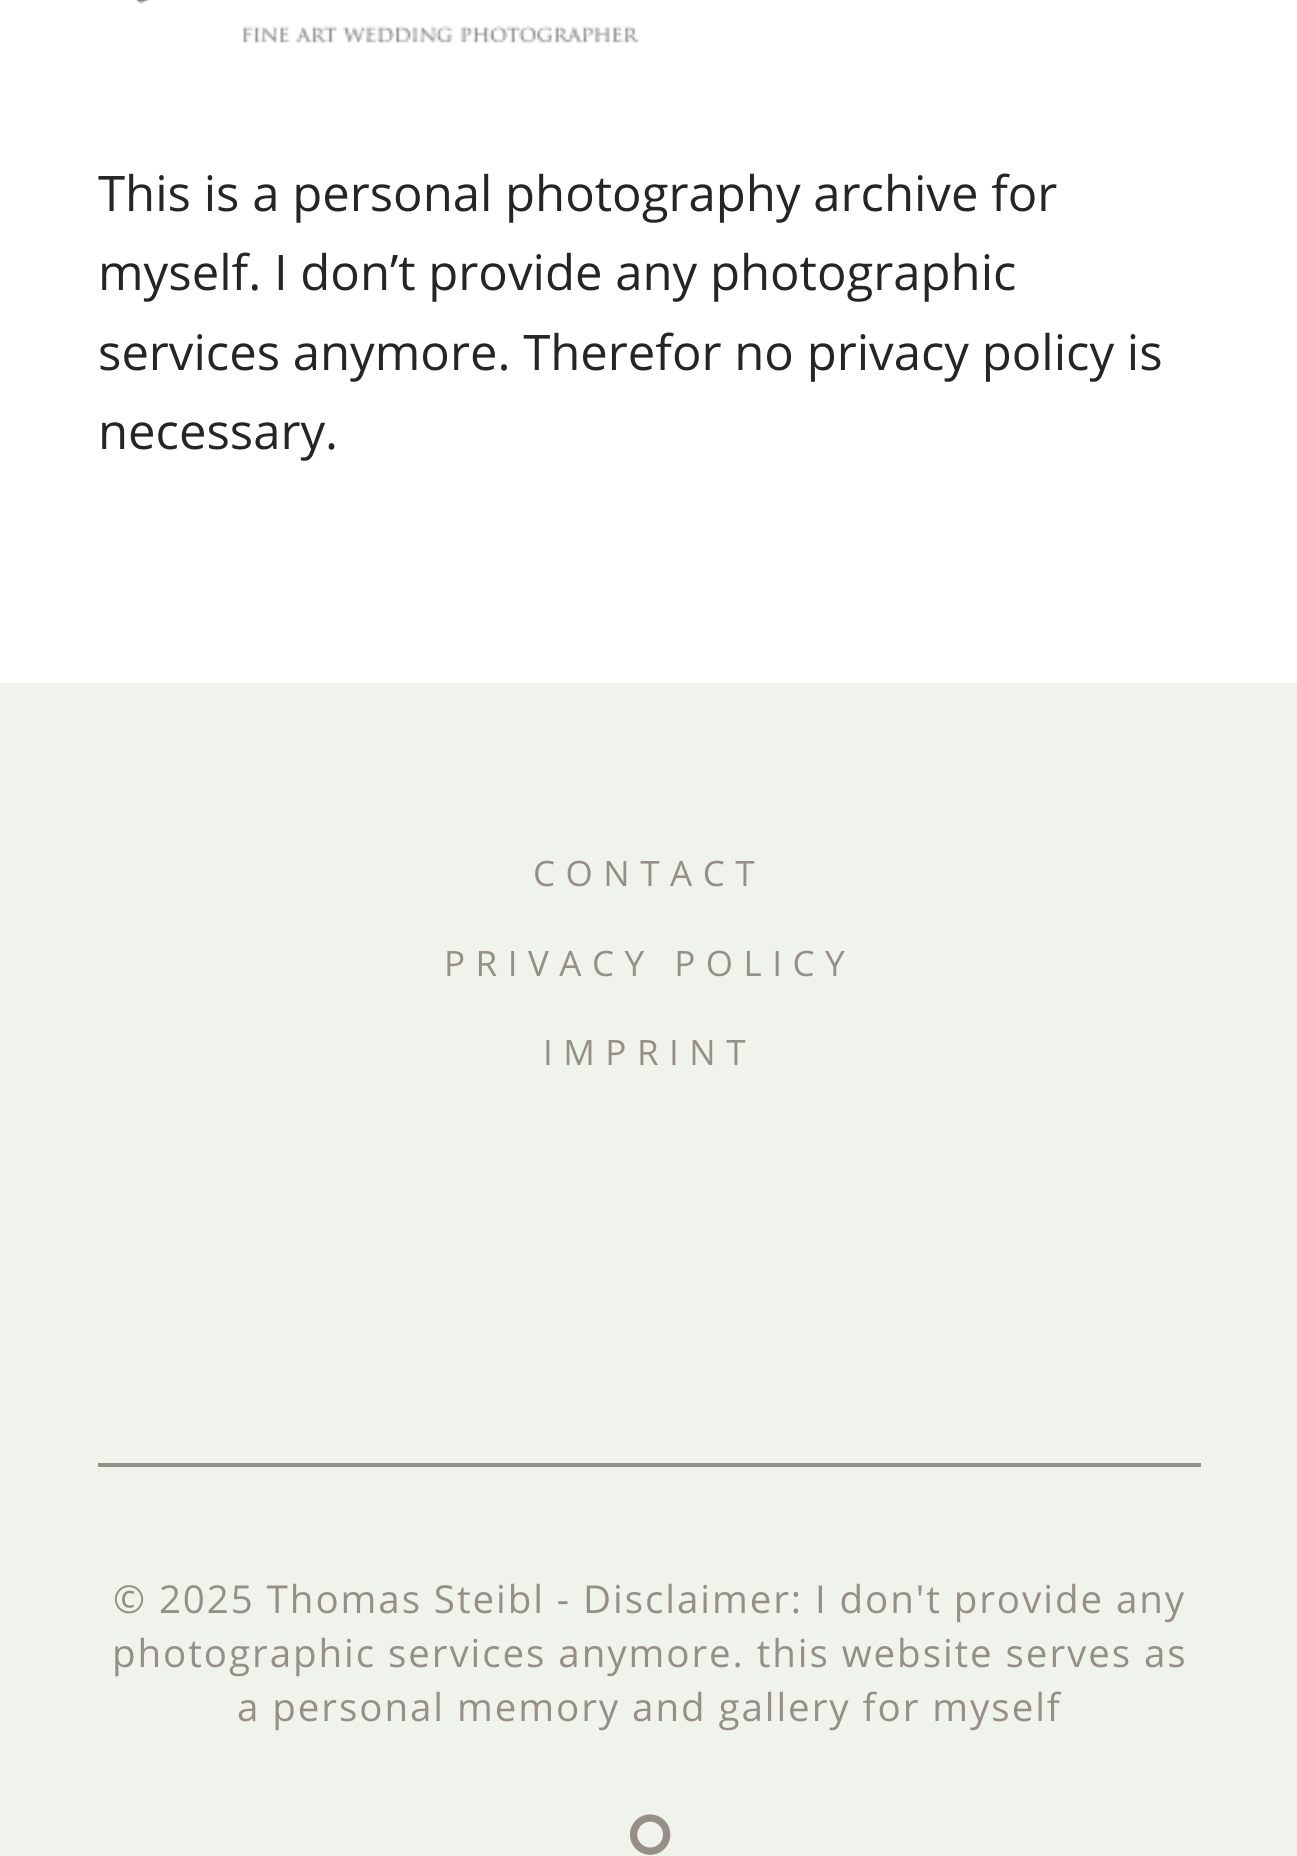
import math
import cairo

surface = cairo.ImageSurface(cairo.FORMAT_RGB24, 1297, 1856)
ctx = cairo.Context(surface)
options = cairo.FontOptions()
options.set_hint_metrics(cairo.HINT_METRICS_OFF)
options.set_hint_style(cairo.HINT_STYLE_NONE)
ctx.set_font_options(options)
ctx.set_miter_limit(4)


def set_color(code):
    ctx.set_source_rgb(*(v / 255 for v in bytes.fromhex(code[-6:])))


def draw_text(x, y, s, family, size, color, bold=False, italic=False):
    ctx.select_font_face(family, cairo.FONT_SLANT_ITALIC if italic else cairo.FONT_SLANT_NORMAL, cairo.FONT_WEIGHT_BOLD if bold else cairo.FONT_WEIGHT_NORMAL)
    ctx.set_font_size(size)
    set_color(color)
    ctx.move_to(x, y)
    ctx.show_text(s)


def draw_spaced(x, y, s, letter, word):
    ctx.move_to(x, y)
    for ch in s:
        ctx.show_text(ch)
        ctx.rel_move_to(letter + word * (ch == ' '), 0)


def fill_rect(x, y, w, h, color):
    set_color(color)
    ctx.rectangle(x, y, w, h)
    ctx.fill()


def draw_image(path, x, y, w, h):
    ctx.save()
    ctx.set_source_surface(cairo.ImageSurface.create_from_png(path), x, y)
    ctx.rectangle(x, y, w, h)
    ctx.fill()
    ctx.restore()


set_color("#ffffff")
ctx.paint()
draw_image("assets/img1.png", 136, 0, 504, 43)
draw_text(98, 211, "This is a personal photography archive for", "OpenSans", 49, "#252525")
draw_text(98, 290, "myself. I don’t provide any photographic", "OpenSans", 49, "#252525")
draw_text(98, 370, "services anymore. Therefor no privacy policy is", "OpenSans", 49, "#252525")
draw_text(98, 449, "necessary.", "OpenSans", 49, "#252525")
fill_rect(0, 683, 1297, 1173, "#f0f2ec")
ctx.set_font_size(35)
set_color("#968f88")
draw_spaced(533, 886, "CONTACT", 10.5, 0)
draw_spaced(444, 976, "PRIVACY POLICY", 10.5, 0)
draw_spaced(543, 1065, "IMPRINT", 10.5, 0)
fill_rect(98, 1463, 1103, 4, "#968f88")
ctx.set_font_size(38.5)
draw_spaced(113, 1613, "© 2025 Thomas Steibl - Disclaimer: I don't provide any", 1.93, 0)
draw_spaced(112, 1667, "photographic services anymore. this website serves as", 1.93, 0)
draw_spaced(237, 1721, "a personal memory and gallery for myself", 1.93, 0)
draw_image("assets/img2.png", 630, 1814, 41, 41)
surface.write_to_png("output.png")
